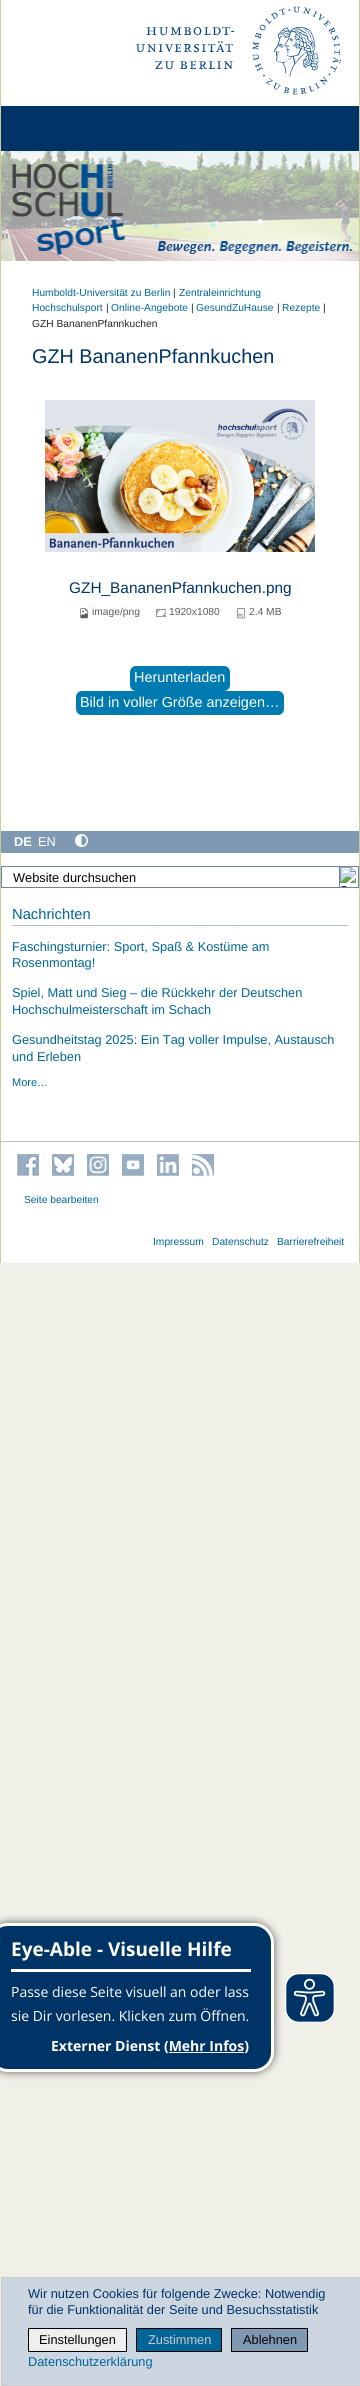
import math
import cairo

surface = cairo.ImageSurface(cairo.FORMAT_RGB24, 360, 2386)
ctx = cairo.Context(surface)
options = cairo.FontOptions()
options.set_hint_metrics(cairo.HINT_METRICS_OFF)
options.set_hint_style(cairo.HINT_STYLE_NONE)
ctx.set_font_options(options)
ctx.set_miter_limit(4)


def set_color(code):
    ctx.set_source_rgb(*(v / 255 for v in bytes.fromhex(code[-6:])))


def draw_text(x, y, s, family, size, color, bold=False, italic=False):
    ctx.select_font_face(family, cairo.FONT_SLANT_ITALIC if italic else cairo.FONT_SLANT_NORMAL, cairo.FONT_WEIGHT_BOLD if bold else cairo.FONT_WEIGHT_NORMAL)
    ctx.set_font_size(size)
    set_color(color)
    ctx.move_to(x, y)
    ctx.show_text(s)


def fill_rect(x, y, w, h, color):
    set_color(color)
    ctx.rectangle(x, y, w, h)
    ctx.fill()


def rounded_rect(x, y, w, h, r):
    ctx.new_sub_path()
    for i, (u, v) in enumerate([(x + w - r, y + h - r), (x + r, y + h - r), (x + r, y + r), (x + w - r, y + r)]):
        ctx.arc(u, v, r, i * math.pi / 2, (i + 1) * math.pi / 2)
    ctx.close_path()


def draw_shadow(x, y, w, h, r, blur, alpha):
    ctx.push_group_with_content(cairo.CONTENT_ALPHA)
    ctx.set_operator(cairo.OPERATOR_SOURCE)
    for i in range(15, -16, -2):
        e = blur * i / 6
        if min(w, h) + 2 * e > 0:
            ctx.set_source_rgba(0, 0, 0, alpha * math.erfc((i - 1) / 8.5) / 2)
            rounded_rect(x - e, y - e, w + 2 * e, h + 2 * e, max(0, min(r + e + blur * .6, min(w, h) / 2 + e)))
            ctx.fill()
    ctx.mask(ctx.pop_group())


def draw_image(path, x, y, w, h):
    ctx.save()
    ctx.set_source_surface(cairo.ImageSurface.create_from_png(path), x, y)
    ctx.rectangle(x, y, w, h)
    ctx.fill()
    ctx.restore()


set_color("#f0f0e8")
ctx.paint()
fill_rect(1, 0, 358, 1263, "#ffffff")
draw_image("assets/img1.png", 136, 6, 205, 89)
fill_rect(1, 106, 358, 45, "#003366")
draw_image("assets/img2.png", 1, 151, 358, 110)
fill_rect(359, 0, 1, 1263, "#cccc99")
fill_rect(0, 0, 1, 1263, "#cccc99")
draw_text(32, 296, "Humboldt-Universität zu Berlin", "Liberation Sans", 10.25, "#006699")
draw_text(173, 296, "|", "Liberation Sans", 10.25, "#212529")
draw_text(179, 296, "Zentraleinrichtung", "Liberation Sans", 10.25, "#006699")
draw_text(32, 311, "Hochschulsport", "Liberation Sans", 10.25, "#006699")
draw_text(106, 311, "|", "Liberation Sans", 10.25, "#212529")
draw_text(111, 311, "Online-Angebote", "Liberation Sans", 10.25, "#006699")
draw_text(191, 311, "|", "Liberation Sans", 10.25, "#212529")
draw_text(196, 311, "GesundZuHause", "Liberation Sans", 10.25, "#006699")
draw_text(277, 311, "|", "Liberation Sans", 10.25, "#212529")
draw_text(282, 311, "Rezepte", "Liberation Sans", 10.25, "#006699")
draw_text(323, 311, "|", "Liberation Sans", 10.25, "#212529")
draw_text(32, 327, "GZH BananenPfannkuchen", "Liberation Sans", 10.25, "#212529")
draw_text(32, 363, "GZH BananenPfannkuchen", "Liberation Sans", 19.8, "#003366")
draw_image("assets/img3.png", 45, 400, 270, 152)
draw_text(69, 593, "GZH_BananenPfannkuchen.png", "Liberation Sans", 15.4, "#003366")
draw_image("assets/img4.png", 80, 608, 8, 11)
draw_text(92, 615, "image/png", "Liberation Sans", 10.25, "#595c5f")
draw_image("assets/img5.png", 156, 609, 10, 8)
draw_text(169, 615, "1920x1080", "Liberation Sans", 10.25, "#595c5f")
draw_image("assets/img6.png", 237, 608, 8, 11)
draw_text(249, 615, "2.4 MB", "Liberation Sans", 10.25, "#595c5f")
set_color("#007bb1")
rounded_rect(130, 666, 100, 25, 6)
ctx.fill()
draw_text(134, 682, "Herunterladen", "Liberation Sans", 14.4, "#ffffff")
set_color("#007bb1")
rounded_rect(76, 691, 208, 24, 6)
ctx.fill()
draw_text(80, 707, "Bild in voller Größe anzeigen…", "Liberation Sans", 14.4, "#ffffff")
fill_rect(1, 831, 358, 22, "#8099b2")
draw_text(14, 846, "DE", "Liberation Sans", 12.8, "#ffffff", bold=True)
draw_text(38, 846, "EN", "Liberation Sans", 12.8, "#ffffff")
draw_image("assets/img7.png", 75, 834, 13, 13)
ctx.rectangle(1.5, 866.5, 357, 21)
set_color("#6685a3")
ctx.set_line_width(1)
ctx.stroke()
draw_text(13, 882, "Website durchsuchen", "Liberation Sans", 12.8, "#000000")
ctx.rectangle(339.5, 866.5, 19, 21)
set_color("#6685a3")
ctx.stroke()
draw_image("assets/img8.png", 340, 867, 16, 20)
fill_rect(12, 925, 336, 1, "#b2c1d1")
draw_text(12, 919, "Nachrichten", "Liberation Sans", 14.75, "#006699")
draw_text(12, 951, "Faschingsturnier: Sport, Spaß & Kostüme am", "Liberation Sans", 12.8, "#006699")
draw_text(12, 967, "Rosenmontag!", "Liberation Sans", 12.8, "#006699")
draw_text(12, 997, "Spiel, Matt und Sieg – die Rückkehr der Deutschen", "Liberation Sans", 12.8, "#006699")
draw_text(12, 1014, "Hochschulmeisterschaft im Schach", "Liberation Sans", 12.8, "#006699")
draw_text(12, 1044, "Gesundheitstag 2025: Ein Tag voller Impulse, Austausch", "Liberation Sans", 12.8, "#006699")
draw_text(12, 1061, "und Erleben", "Liberation Sans", 12.8, "#006699")
draw_text(12, 1086, "More…", "Liberation Sans", 11, "#006699")
fill_rect(1, 1141, 358, 1, "#b2c1d1")
draw_image("assets/img9.png", 17, 1154, 22, 22)
draw_image("assets/img10.png", 52, 1154, 22, 22)
draw_image("assets/img11.png", 87, 1154, 22, 22)
draw_image("assets/img12.png", 122, 1154, 22, 22)
draw_image("assets/img13.png", 157, 1154, 22, 22)
draw_image("assets/img14.png", 192, 1154, 22, 22)
draw_text(24, 1203, "Seite bearbeiten", "Liberation Sans", 10.25, "#006699")
draw_text(153, 1245, "Impressum", "Liberation Sans", 10.25, "#006699")
draw_text(212, 1245, "Datenschutz", "Liberation Sans", 10.25, "#006699")
draw_text(277, 1245, "Barrierefreiheit", "Liberation Sans", 10.25, "#006699")
set_color("#ccd6e0")
ctx.rectangle(1.5, 2277.5, 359, 108)
ctx.fill_preserve()
set_color("#cccccc")
ctx.stroke()
draw_text(28, 2298, "Wir nutzen Cookies für folgende Zwecke: Notwendig", "Liberation Sans", 12.8, "#003366")
draw_text(28, 2314, "für die Funktionalität der Seite und Besuchsstatistik", "Liberation Sans", 12.8, "#003366")
set_color("#efefef")
ctx.rectangle(28.5, 2328.5, 98, 23)
ctx.fill_preserve()
set_color("#000000")
ctx.stroke()
draw_text(39, 2344, "Einstellungen", "Liberation Sans", 12.8, "#000000")
set_color("#006699")
ctx.rectangle(136.5, 2328.5, 85, 23)
ctx.fill_preserve()
set_color("#000000")
ctx.stroke()
draw_text(148, 2344, "Zustimmen", "Liberation Sans", 12.8, "#d5c7c7")
set_color("#8099b2")
ctx.rectangle(231.5, 2328.5, 76, 23)
ctx.fill_preserve()
set_color("#000000")
ctx.stroke()
draw_text(243, 2344, "Ablehnen", "Liberation Sans", 12.8, "#000000")
draw_text(28, 2366, "Datenschutzerklärung", "Liberation Sans", 12.8, "#006699")
set_color("#000000")
draw_shadow(-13, 1922, 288, 151, 21, 4, 0.5)
set_color("#003366")
rounded_rect(-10.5, 1924.5, 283, 146, 18.5)
ctx.fill_preserve()
set_color("#ffffff")
ctx.set_line_width(3)
ctx.stroke()
fill_rect(11, 1969, 240, 3, "#ffffff")
draw_text(11, 1956, "Eye-Able - Visuelle Hilfe", "Open Sans", 19, "#ffffff", bold=True)
draw_text(11, 1997, "Passe diese Seite visuell an oder lass", "Open Sans", 14, "#ffffff")
draw_text(11, 2021, "sie Dir vorlesen. Klicken zum Öffnen.", "Open Sans", 14, "#ffffff")
draw_text(51, 2051, "Externer Dienst (Mehr Infos)", "Open Sans", 14, "#ffffff", bold=True)
fill_rect(169, 2052, 75, 1, "#ffffff")
draw_image("assets/img15.png", 285, 1973, 50, 50)
surface.write_to_png("output.png")
